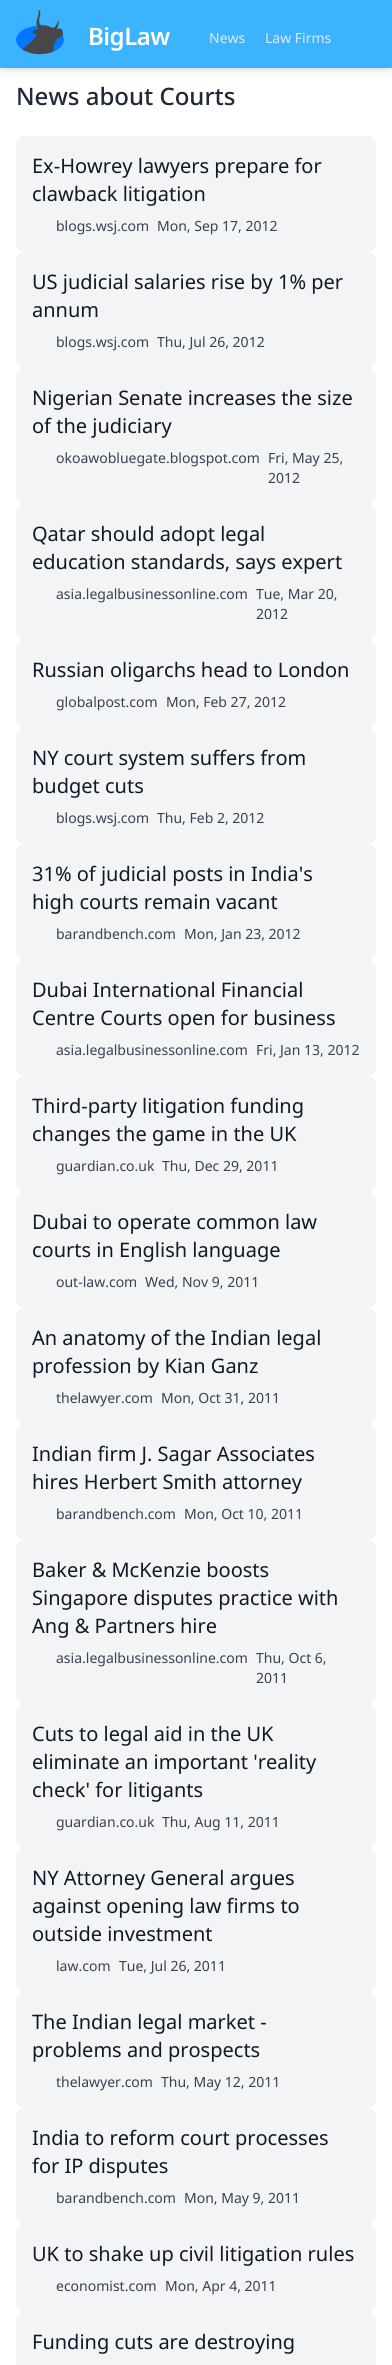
import math
import cairo

surface = cairo.ImageSurface(cairo.FORMAT_RGB24, 392, 2365)
ctx = cairo.Context(surface)
options = cairo.FontOptions()
options.set_hint_metrics(cairo.HINT_METRICS_OFF)
options.set_hint_style(cairo.HINT_STYLE_NONE)
ctx.set_font_options(options)
ctx.set_miter_limit(4)


def set_color(code):
    ctx.set_source_rgb(*(v / 255 for v in bytes.fromhex(code[-6:])))


def draw_text(x, y, s, family, size, color, bold=False, italic=False):
    ctx.select_font_face(family, cairo.FONT_SLANT_ITALIC if italic else cairo.FONT_SLANT_NORMAL, cairo.FONT_WEIGHT_BOLD if bold else cairo.FONT_WEIGHT_NORMAL)
    ctx.set_font_size(size)
    set_color(color)
    ctx.move_to(x, y)
    ctx.show_text(s)


def draw_spaced(x, y, s, letter, word):
    ctx.move_to(x, y)
    for ch in s:
        ctx.show_text(ch)
        ctx.rel_move_to(letter + word * (ch == ' '), 0)


def fill_rect(x, y, w, h, color):
    set_color(color)
    ctx.rectangle(x, y, w, h)
    ctx.fill()


def rounded_rect(x, y, w, h, r):
    ctx.new_sub_path()
    for i, (u, v) in enumerate([(x + w - r, y + h - r), (x + r, y + h - r), (x + r, y + r), (x + w - r, y + r)]):
        ctx.arc(u, v, r, i * math.pi / 2, (i + 1) * math.pi / 2)
    ctx.close_path()


def draw_shadow(x, y, w, h, r, blur, alpha):
    ctx.push_group_with_content(cairo.CONTENT_ALPHA)
    ctx.set_operator(cairo.OPERATOR_SOURCE)
    for i in range(15, -16, -2):
        e = blur * i / 6
        if min(w, h) + 2 * e > 0:
            ctx.set_source_rgba(0, 0, 0, alpha * math.erfc((i - 1) / 8.5) / 2)
            rounded_rect(x - e, y - e, w + 2 * e, h + 2 * e, max(0, min(r + e + blur * .6, min(w, h) / 2 + e)))
            ctx.fill()
    ctx.mask(ctx.pop_group())


def draw_image(path, x, y, w, h):
    ctx.save()
    ctx.set_source_surface(cairo.ImageSurface.create_from_png(path), x, y)
    ctx.rectangle(x, y, w, h)
    ctx.fill()
    ctx.restore()


set_color("#ffffff")
ctx.paint()
set_color("#000000")
draw_shadow(1, 3, 390, 66, 0, 2, 0.06)
draw_shadow(1, 5, 390, 66, 0, 3, 0.1)
fill_rect(0, 0, 392, 68, "#3cb3ff")
draw_image("assets/img1.png", 16, 9, 48, 46)
ctx.select_font_face("Noto Sans SemiBold")
ctx.set_font_size(24)
set_color("#ffffff")
draw_spaced(88, 45, "BigLaw", -0.5, 0)
draw_text(209, 43, "News", "Noto Sans", 14, "#dbeafe")
draw_text(265, 43, "Law Firms", "Noto Sans", 14, "#dbeafe")
draw_text(16, 105, "News about Courts", "Noto Sans Medium", 24, "#1f2937")
set_color("#f3f4f6")
rounded_rect(16, 136, 360, 116, 8)
ctx.fill()
draw_text(32, 173, "Ex-Howrey lawyers prepare for", "Noto Sans", 20, "#111827")
draw_text(32, 201, "clawback litigation", "Noto Sans", 20, "#111827")
draw_text(56, 231, "blogs.wsj.com", "Noto Sans", 14, "#374151")
draw_text(157, 231, "Mon, Sep 17, 2012", "Noto Sans", 14, "#374151")
set_color("#f3f4f6")
rounded_rect(16, 252, 360, 116, 8)
ctx.fill()
draw_text(32, 289, "US judicial salaries rise by 1% per", "Noto Sans", 20, "#111827")
draw_text(32, 317, "annum", "Noto Sans", 20, "#111827")
draw_text(56, 347, "blogs.wsj.com", "Noto Sans", 14, "#374151")
draw_text(157, 347, "Thu, Jul 26, 2012", "Noto Sans", 14, "#374151")
set_color("#f3f4f6")
rounded_rect(16, 368, 360, 136, 8)
ctx.fill()
draw_text(32, 405, "Nigerian Senate increases the size", "Noto Sans", 20, "#111827")
draw_text(32, 433, "of the judiciary", "Noto Sans", 20, "#111827")
draw_text(56, 463, "okoawobluegate.blogspot.com", "Noto Sans", 14, "#374151")
draw_text(268, 463, "Fri, May 25,", "Noto Sans", 14, "#374151")
draw_text(268, 483, "2012", "Noto Sans", 14, "#374151")
set_color("#f3f4f6")
rounded_rect(16, 504, 360, 136, 8)
ctx.fill()
draw_text(32, 541, "Qatar should adopt legal", "Noto Sans", 20, "#111827")
draw_text(32, 569, "education standards, says expert", "Noto Sans", 20, "#111827")
draw_text(56, 599, "asia.legalbusinessonline.com", "Noto Sans", 14, "#374151")
draw_text(256, 599, "Tue, Mar 20,", "Noto Sans", 14, "#374151")
draw_text(256, 619, "2012", "Noto Sans", 14, "#374151")
set_color("#f3f4f6")
rounded_rect(16, 640, 360, 88, 8)
ctx.fill()
draw_text(32, 677, "Russian oligarchs head to London", "Noto Sans", 20, "#111827")
draw_text(56, 707, "globalpost.com", "Noto Sans", 14, "#374151")
draw_text(166, 707, "Mon, Feb 27, 2012", "Noto Sans", 14, "#374151")
set_color("#f3f4f6")
rounded_rect(16, 728, 360, 116, 8)
ctx.fill()
draw_text(32, 765, "NY court system suffers from", "Noto Sans", 20, "#111827")
draw_text(32, 793, "budget cuts", "Noto Sans", 20, "#111827")
draw_text(56, 823, "blogs.wsj.com", "Noto Sans", 14, "#374151")
draw_text(157, 823, "Thu, Feb 2, 2012", "Noto Sans", 14, "#374151")
set_color("#f3f4f6")
rounded_rect(16, 844, 360, 116, 8)
ctx.fill()
draw_text(32, 881, "31% of judicial posts in India's", "Noto Sans", 20, "#111827")
draw_text(32, 909, "high courts remain vacant", "Noto Sans", 20, "#111827")
draw_text(56, 939, "barandbench.com", "Noto Sans", 14, "#374151")
draw_text(184, 939, "Mon, Jan 23, 2012", "Noto Sans", 14, "#374151")
set_color("#f3f4f6")
rounded_rect(16, 960, 360, 116, 8)
ctx.fill()
draw_text(32, 997, "Dubai International Financial", "Noto Sans", 20, "#111827")
draw_text(32, 1025, "Centre Courts open for business", "Noto Sans", 20, "#111827")
draw_text(56, 1055, "asia.legalbusinessonline.com", "Noto Sans", 14, "#374151")
draw_text(256, 1055, "Fri, Jan 13, 2012", "Noto Sans", 14, "#374151")
set_color("#f3f4f6")
rounded_rect(16, 1076, 360, 116, 8)
ctx.fill()
draw_text(32, 1113, "Third-party litigation funding", "Noto Sans", 20, "#111827")
draw_text(32, 1141, "changes the game in the UK", "Noto Sans", 20, "#111827")
draw_text(56, 1171, "guardian.co.uk", "Noto Sans", 14, "#374151")
draw_text(162, 1171, "Thu, Dec 29, 2011", "Noto Sans", 14, "#374151")
set_color("#f3f4f6")
rounded_rect(16, 1192, 360, 116, 8)
ctx.fill()
draw_text(32, 1229, "Dubai to operate common law", "Noto Sans", 20, "#111827")
draw_text(32, 1257, "courts in English language", "Noto Sans", 20, "#111827")
draw_text(56, 1287, "out-law.com", "Noto Sans", 14, "#374151")
draw_text(145, 1287, "Wed, Nov 9, 2011", "Noto Sans", 14, "#374151")
set_color("#f3f4f6")
rounded_rect(16, 1308, 360, 116, 8)
ctx.fill()
draw_text(32, 1345, "An anatomy of the Indian legal", "Noto Sans", 20, "#111827")
draw_text(32, 1373, "profession by Kian Ganz", "Noto Sans", 20, "#111827")
draw_text(56, 1403, "thelawyer.com", "Noto Sans", 14, "#374151")
draw_text(161, 1403, "Mon, Oct 31, 2011", "Noto Sans", 14, "#374151")
set_color("#f3f4f6")
rounded_rect(16, 1424, 360, 116, 8)
ctx.fill()
draw_text(32, 1461, "Indian firm J. Sagar Associates", "Noto Sans", 20, "#111827")
draw_text(32, 1489, "hires Herbert Smith attorney", "Noto Sans", 20, "#111827")
draw_text(56, 1519, "barandbench.com", "Noto Sans", 14, "#374151")
draw_text(184, 1519, "Mon, Oct 10, 2011", "Noto Sans", 14, "#374151")
set_color("#f3f4f6")
rounded_rect(16, 1540, 360, 164, 8)
ctx.fill()
draw_text(32, 1577, "Baker & McKenzie boosts", "Noto Sans", 20, "#111827")
draw_text(32, 1605, "Singapore disputes practice with", "Noto Sans", 20, "#111827")
draw_text(32, 1633, "Ang & Partners hire", "Noto Sans", 20, "#111827")
draw_text(56, 1663, "asia.legalbusinessonline.com", "Noto Sans", 14, "#374151")
draw_text(256, 1663, "Thu, Oct 6,", "Noto Sans", 14, "#374151")
draw_text(256, 1683, "2011", "Noto Sans", 14, "#374151")
set_color("#f3f4f6")
rounded_rect(16, 1704, 360, 144, 8)
ctx.fill()
draw_text(32, 1741, "Cuts to legal aid in the UK", "Noto Sans", 20, "#111827")
draw_text(32, 1769, "eliminate an important 'reality", "Noto Sans", 20, "#111827")
draw_text(32, 1797, "check' for litigants", "Noto Sans", 20, "#111827")
draw_text(56, 1827, "guardian.co.uk", "Noto Sans", 14, "#374151")
draw_text(162, 1827, "Thu, Aug 11, 2011", "Noto Sans", 14, "#374151")
set_color("#f3f4f6")
rounded_rect(16, 1848, 360, 144, 8)
ctx.fill()
draw_text(32, 1885, "NY Attorney General argues", "Noto Sans", 20, "#111827")
draw_text(32, 1913, "against opening law firms to", "Noto Sans", 20, "#111827")
draw_text(32, 1941, "outside investment", "Noto Sans", 20, "#111827")
draw_text(56, 1971, "law.com", "Noto Sans", 14, "#374151")
draw_text(119, 1971, "Tue, Jul 26, 2011", "Noto Sans", 14, "#374151")
set_color("#f3f4f6")
rounded_rect(16, 1992, 360, 116, 8)
ctx.fill()
draw_text(32, 2029, "The Indian legal market -", "Noto Sans", 20, "#111827")
draw_text(32, 2057, "problems and prospects", "Noto Sans", 20, "#111827")
draw_text(56, 2087, "thelawyer.com", "Noto Sans", 14, "#374151")
draw_text(161, 2087, "Thu, May 12, 2011", "Noto Sans", 14, "#374151")
set_color("#f3f4f6")
rounded_rect(16, 2108, 360, 116, 8)
ctx.fill()
draw_text(32, 2145, "India to reform court processes", "Noto Sans", 20, "#111827")
draw_text(32, 2173, "for IP disputes", "Noto Sans", 20, "#111827")
draw_text(56, 2203, "barandbench.com", "Noto Sans", 14, "#374151")
draw_text(184, 2203, "Mon, May 9, 2011", "Noto Sans", 14, "#374151")
set_color("#f3f4f6")
rounded_rect(16, 2224, 360, 88, 8)
ctx.fill()
draw_text(32, 2261, "UK to shake up civil litigation rules", "Noto Sans", 20, "#111827")
draw_text(56, 2291, "economist.com", "Noto Sans", 14, "#374151")
draw_text(165, 2291, "Mon, Apr 4, 2011", "Noto Sans", 14, "#374151")
set_color("#f3f4f6")
rounded_rect(16, 2312, 360, 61, 8)
ctx.fill()
draw_text(32, 2349, "Funding cuts are destroying", "Noto Sans", 20, "#111827")
surface.write_to_png("output.png")
